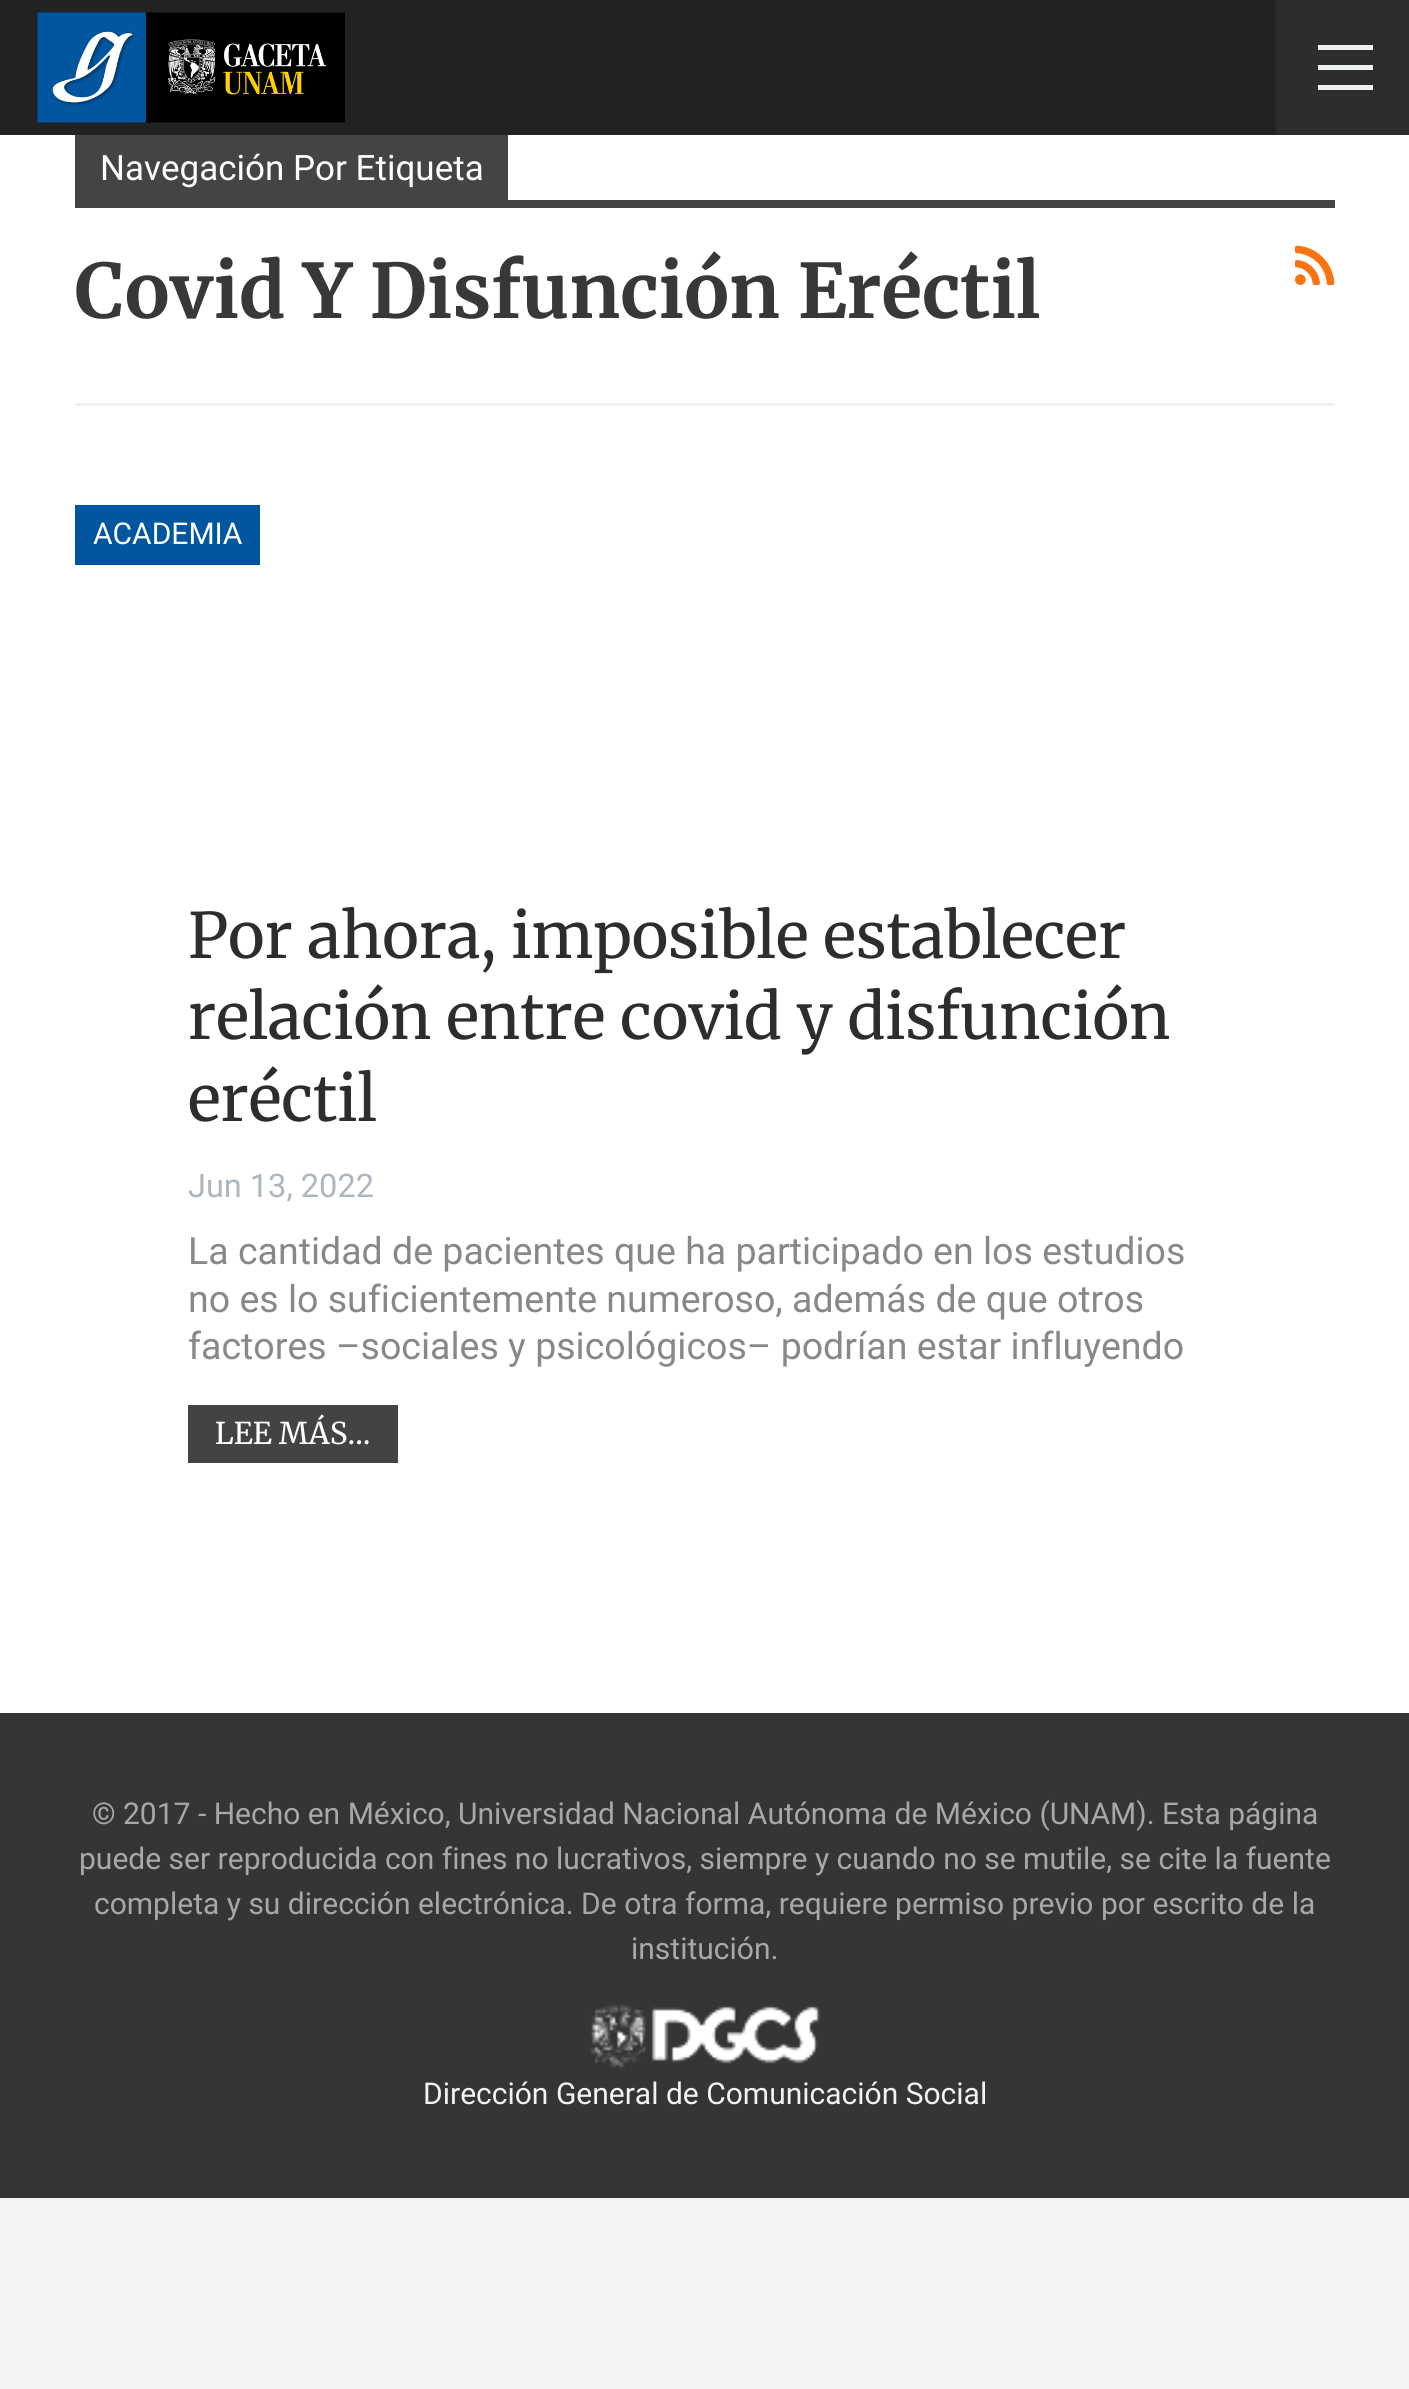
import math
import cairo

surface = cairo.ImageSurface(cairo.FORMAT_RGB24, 1409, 2389)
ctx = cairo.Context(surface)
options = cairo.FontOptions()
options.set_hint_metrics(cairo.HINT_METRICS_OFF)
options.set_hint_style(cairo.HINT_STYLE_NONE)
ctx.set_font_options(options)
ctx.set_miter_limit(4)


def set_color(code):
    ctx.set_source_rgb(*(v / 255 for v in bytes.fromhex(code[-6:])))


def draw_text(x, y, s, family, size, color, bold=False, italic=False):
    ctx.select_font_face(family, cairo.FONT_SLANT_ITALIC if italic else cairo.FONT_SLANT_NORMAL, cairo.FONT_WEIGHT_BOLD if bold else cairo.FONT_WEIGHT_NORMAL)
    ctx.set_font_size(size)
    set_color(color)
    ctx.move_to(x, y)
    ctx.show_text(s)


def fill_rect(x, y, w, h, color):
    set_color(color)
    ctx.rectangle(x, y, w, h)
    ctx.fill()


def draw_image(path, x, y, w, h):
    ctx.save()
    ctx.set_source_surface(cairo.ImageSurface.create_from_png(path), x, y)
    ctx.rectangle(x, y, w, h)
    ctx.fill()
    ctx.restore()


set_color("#f3f3f3")
ctx.paint()
fill_rect(0, 135, 1409, 1578, "#ffffff")
fill_rect(0, 0, 1275, 135, "#222222")
draw_image("assets/img1.png", 37, 12, 308, 111)
fill_rect(1278, 0, 131, 135, "#2d2d2d")
fill_rect(1275, 0, 3, 135, "#2a2a2a")
fill_rect(1318, 65, 55, 5, "#ecf0f1")
fill_rect(1318, 45, 55, 5, "#ecf0f1")
fill_rect(1318, 85, 55, 5, "#ecf0f1")
fill_rect(75, 403, 1260, 3, "#f0f0f0")
fill_rect(75, 135, 433, 65, "#444444")
draw_text(100, 180, "Navegación Por Etiqueta", "Roboto", 35, "#ffffff")
fill_rect(75, 200, 1260, 8, "#444444")
draw_text(75, 318, "Covid Y Disfunción Eréctil", "Merriweather", 75, "#383838", bold=True)
draw_image("assets/img2.png", 1295, 245, 40, 40)
fill_rect(75, 505, 185, 60, "#00569f")
draw_text(93, 544, "ACADEMIA", "Roboto", 30, "#ffffff")
draw_text(188, 958, "Por ahora, imposible establecer", "Merriweather", 62.5, "#2d2d2d")
draw_text(188, 1039, "relación entre covid y disfunción", "Merriweather", 62.5, "#2d2d2d")
draw_text(188, 1121, "eréctil", "Merriweather", 62.5, "#2d2d2d")
draw_text(188, 1197, "Jun 13, 2022", "Roboto", 32.5, "#adb5bd")
draw_text(188, 1264, "La cantidad de pacientes que ha participado en los estudios", "Roboto", 37.5, "#888888")
draw_text(188, 1312, "no es lo suficientemente numeroso, además de que otros", "Roboto", 37.5, "#888888")
draw_text(188, 1359, "factores –sociales y psicológicos– podrían estar influyendo", "Roboto", 37.5, "#888888")
fill_rect(188, 1405, 210, 58, "#434343")
draw_text(215, 1444, "LEE MÁS...", "Merriweather", 30, "#ffffff")
fill_rect(0, 1713, 1409, 485, "#353535")
draw_text(92, 1824, "© 2017 - Hecho en México, Universidad Nacional Autónoma de México (UNAM). Esta página", "Roboto", 30, "#a8a8a8")
draw_text(79, 1869, "puede ser reproducida con fines no lucrativos, siempre y cuando no se mutile, se cite la fuente", "Roboto", 30, "#a8a8a8")
draw_text(94, 1914, "completa y su dirección electrónica. De otra forma, requiere permiso previo por escrito de la", "Roboto", 30, "#a8a8a8")
draw_text(631, 1959, "institución.", "Roboto", 30, "#a8a8a8")
draw_image("assets/img3.png", 590, 2004, 231, 65)
draw_text(423, 2104, "Dirección General de Comunicación Social", "Roboto", 30, "#f3f3f3")
surface.write_to_png("output.png")
